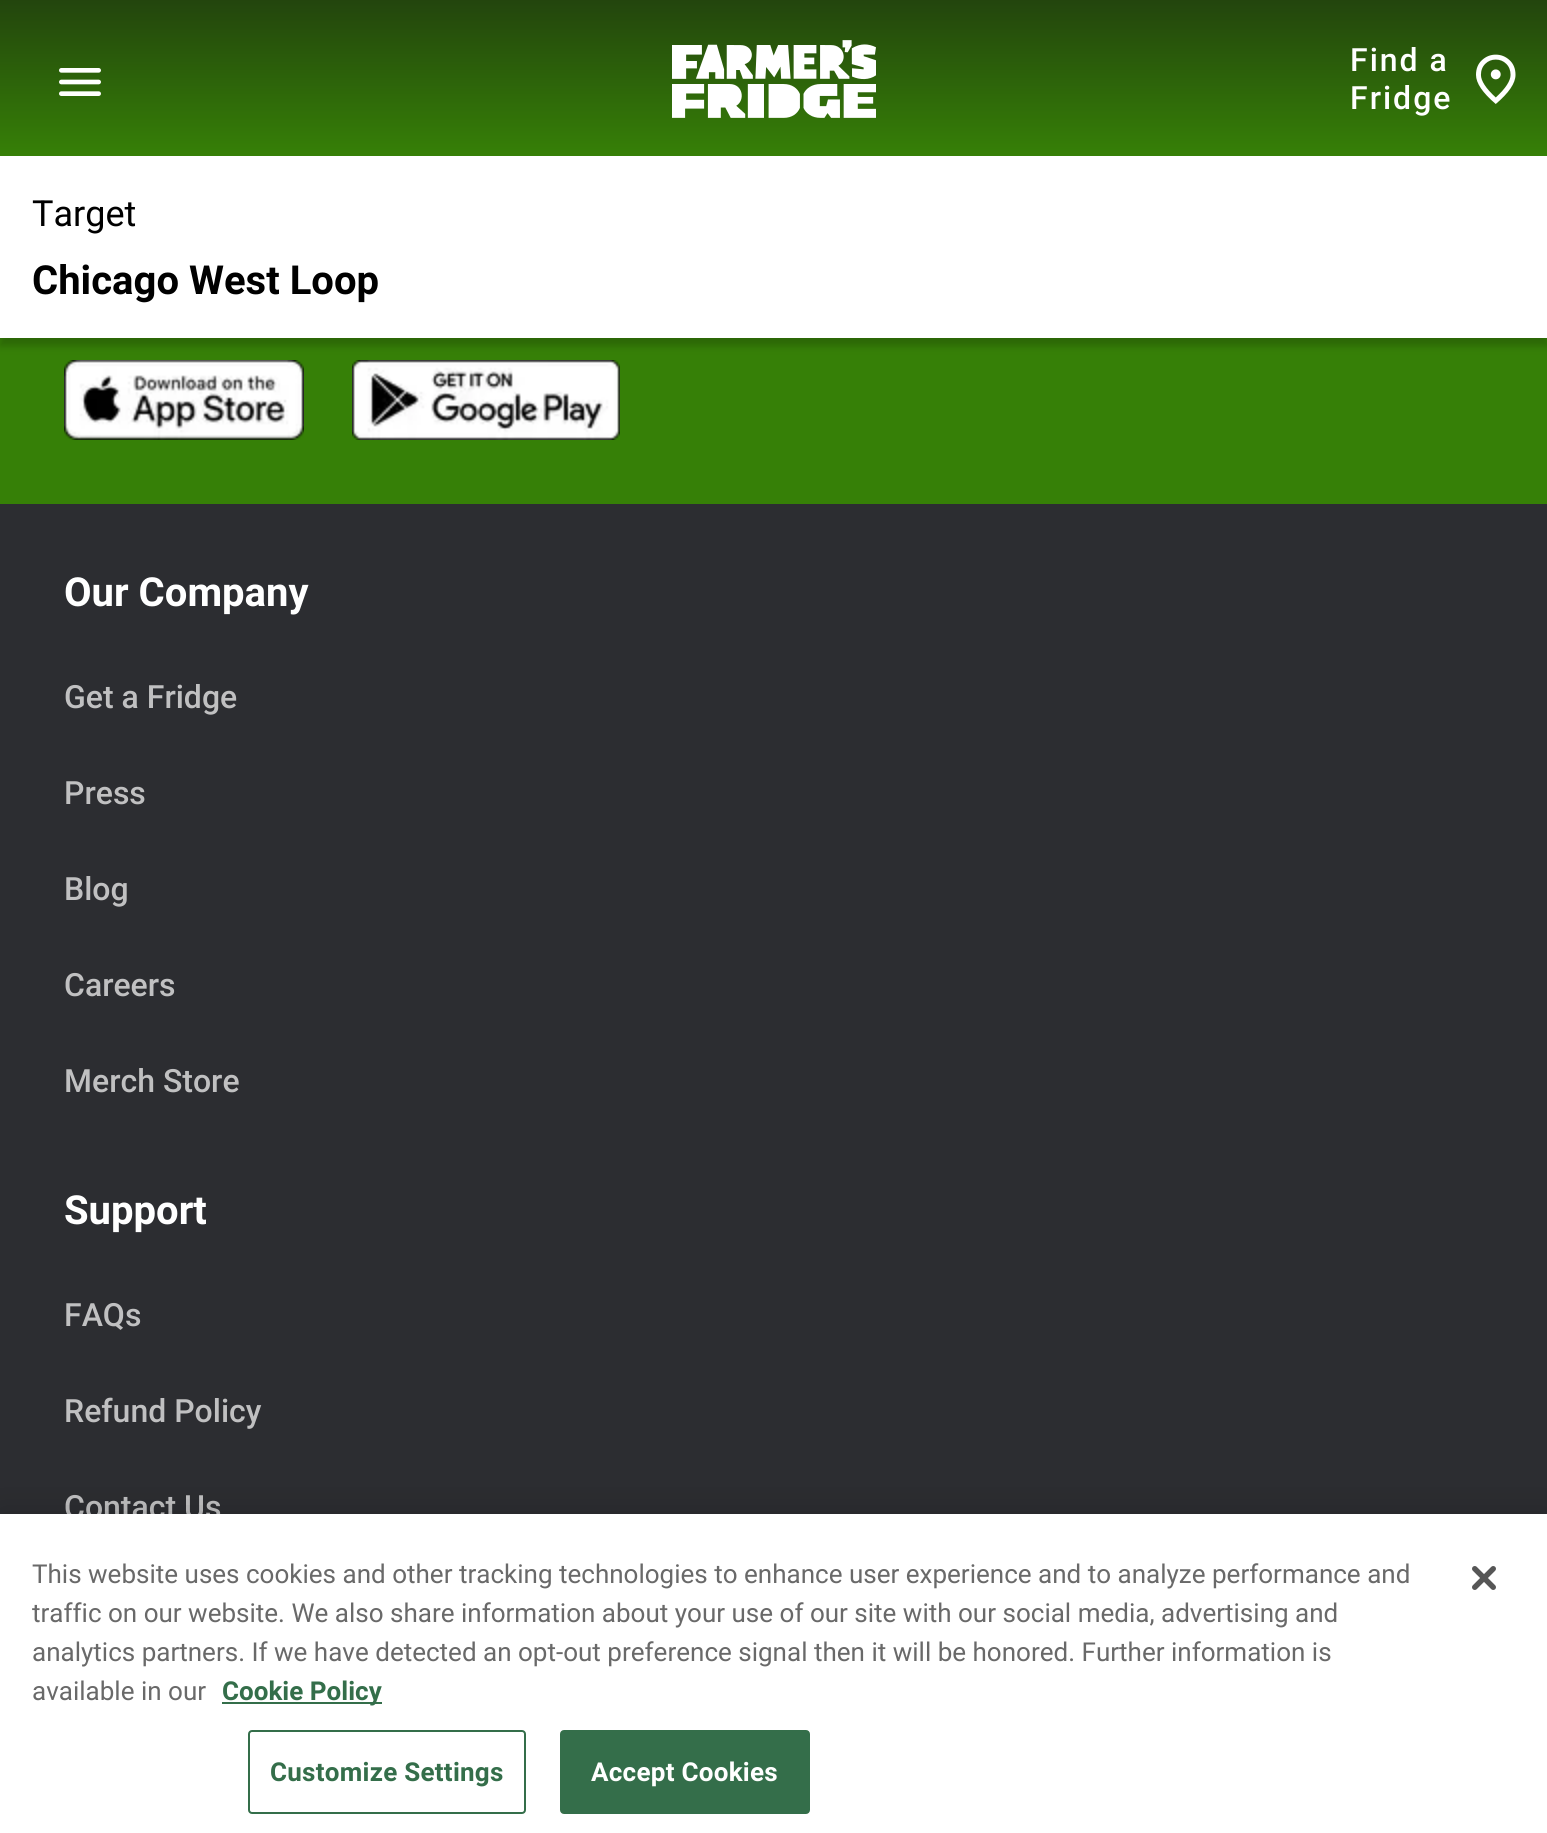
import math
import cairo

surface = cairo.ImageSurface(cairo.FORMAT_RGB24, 1547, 1833)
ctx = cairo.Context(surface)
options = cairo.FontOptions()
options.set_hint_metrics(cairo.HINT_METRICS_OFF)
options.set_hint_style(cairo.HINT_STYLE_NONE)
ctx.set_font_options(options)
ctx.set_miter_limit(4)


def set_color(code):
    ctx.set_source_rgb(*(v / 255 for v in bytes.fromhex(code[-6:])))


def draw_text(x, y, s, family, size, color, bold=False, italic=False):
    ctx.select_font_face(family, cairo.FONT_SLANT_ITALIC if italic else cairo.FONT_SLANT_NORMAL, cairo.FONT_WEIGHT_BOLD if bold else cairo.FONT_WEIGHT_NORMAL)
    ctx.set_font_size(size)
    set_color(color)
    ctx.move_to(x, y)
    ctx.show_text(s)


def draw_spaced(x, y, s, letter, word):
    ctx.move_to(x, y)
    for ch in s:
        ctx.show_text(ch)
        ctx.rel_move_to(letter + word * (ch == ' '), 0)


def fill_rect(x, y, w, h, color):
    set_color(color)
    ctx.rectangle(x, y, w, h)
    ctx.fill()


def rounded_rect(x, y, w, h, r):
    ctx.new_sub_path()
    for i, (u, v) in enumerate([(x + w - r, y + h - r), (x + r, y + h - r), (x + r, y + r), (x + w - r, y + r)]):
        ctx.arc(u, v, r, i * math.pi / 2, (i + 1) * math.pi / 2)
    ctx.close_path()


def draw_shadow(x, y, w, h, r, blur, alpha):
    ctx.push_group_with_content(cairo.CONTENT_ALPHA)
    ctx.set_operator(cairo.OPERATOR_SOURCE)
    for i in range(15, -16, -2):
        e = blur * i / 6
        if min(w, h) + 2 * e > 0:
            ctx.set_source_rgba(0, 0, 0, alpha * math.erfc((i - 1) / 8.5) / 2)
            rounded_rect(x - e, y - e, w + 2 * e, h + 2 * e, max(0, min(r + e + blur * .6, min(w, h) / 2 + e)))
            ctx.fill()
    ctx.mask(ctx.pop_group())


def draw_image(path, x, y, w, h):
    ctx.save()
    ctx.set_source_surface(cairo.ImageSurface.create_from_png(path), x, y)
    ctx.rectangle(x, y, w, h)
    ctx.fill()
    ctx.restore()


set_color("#2c2d31")
ctx.paint()
fill_rect(0, 338, 1547, 166, "#368007")
set_color("#000000")
draw_shadow(0, 162, 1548, 184, 0, 4, 0.2)
gradient = cairo.LinearGradient(774, 0, 774, 156)
gradient.add_color_stop_rgba(0, 0.137, 0.271, 0.051, 1)
gradient.add_color_stop_rgba(1, 0.212, 0.502, 0.027, 1)
ctx.set_source(gradient)
ctx.rectangle(0, 0, 1547, 156)
ctx.fill()
draw_image("assets/img1.png", 59, 68, 42, 28)
draw_image("assets/img2.png", 672, 40, 204, 78)
ctx.select_font_face("Roboto Medium")
ctx.set_font_size(32)
set_color("#ffffff")
draw_spaced(1350, 71, "Find a", 2, 0)
draw_spaced(1350, 109, "Fridge", 2, 0)
draw_image("assets/img3.png", 1476, 54, 40, 50)
fill_rect(0, 156, 1547, 182, "#ffffff")
draw_text(32, 226, "Target", "Roboto", 36, "#000000")
draw_text(32, 294, "Chicago West Loop", "Roboto", 40, "#000000", bold=True)
draw_image("assets/img4.png", 64, 360, 240, 80)
draw_image("assets/img5.png", 352, 360, 268, 80)
draw_text(64, 606, "Our Company", "Roboto", 40, "#ffffff", bold=True)
draw_text(64, 708, "Get a Fridge", "Roboto Medium", 32, "#c0c0c1")
draw_text(64, 804, "Press", "Roboto Medium", 32, "#c0c0c1")
draw_text(64, 900, "Blog", "Roboto Medium", 32, "#c0c0c1")
draw_text(64, 996, "Careers", "Roboto Medium", 32, "#c0c0c1")
draw_text(64, 1092, "Merch Store", "Roboto Medium", 32, "#c0c0c1")
draw_text(64, 1224, "Support", "Roboto", 40, "#ffffff", bold=True)
draw_text(64, 1326, "FAQs", "Roboto Medium", 32, "#c0c0c1")
draw_text(64, 1422, "Refund Policy", "Roboto Medium", 32, "#c0c0c1")
draw_text(64, 1518, "Contact Us", "Roboto Medium", 32, "#c0c0c1")
set_color("#000000")
draw_shadow(0, 1514, 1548, 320, 0, 18, 0.2)
fill_rect(0, 1514, 1547, 319, "#ffffff")
draw_text(32, 1583, "This website uses cookies and other tracking technologies to enhance user experience and to analyze performance and", "Roboto", 26.02, "#696969")
draw_text(32, 1622, "traffic on our website. We also share information about your use of our site with our social media, advertising and", "Roboto", 26.02, "#696969")
draw_text(32, 1661, "analytics partners. If we have detected an opt-out preference signal then it will be honored. Further information is", "Roboto", 26.02, "#696969")
draw_text(32, 1700, "available in our", "Roboto", 26.02, "#696969")
fill_rect(222, 1702, 160, 2, "#346e4a")
draw_text(222, 1700, "Cookie Policy", "Roboto", 26.02, "#346e4a", bold=True)
rounded_rect(249, 1731, 276, 82, 3)
ctx.stroke()
draw_spaced(270, 1781, "Customize Settings", 0.25, 0)
rounded_rect(561, 1731, 248, 82, 3)
ctx.fill_preserve()
ctx.stroke()
set_color("#ffffff")
draw_spaced(591, 1781, "Accept Cookies", 0.25, 0)
draw_image("assets/img6.png", 1472, 1566, 24, 24)
surface.write_to_png("output.png")
